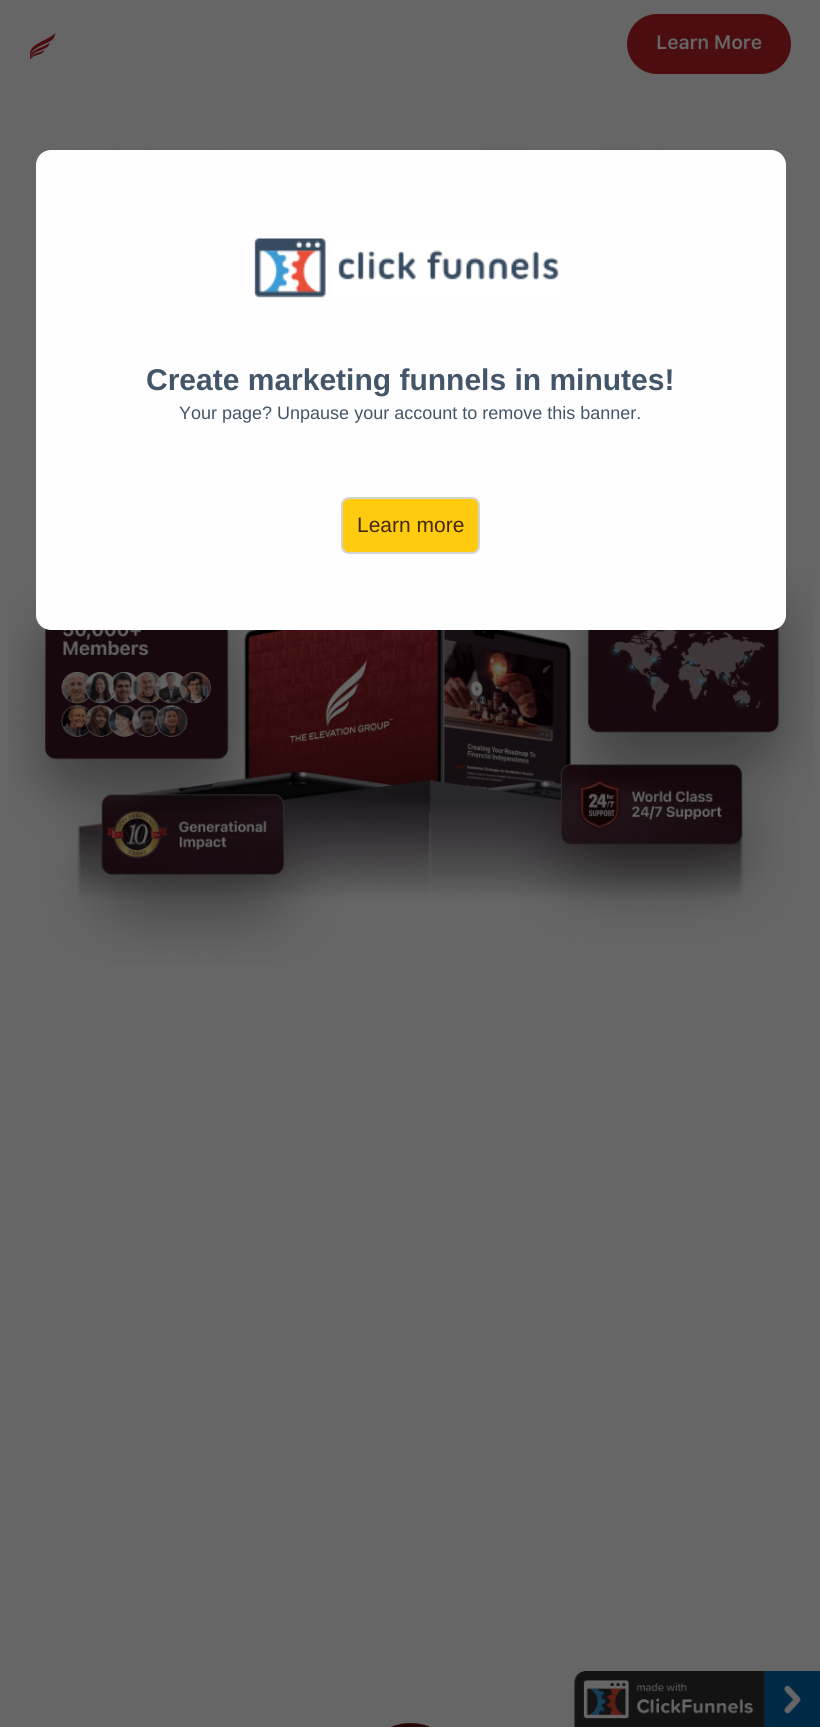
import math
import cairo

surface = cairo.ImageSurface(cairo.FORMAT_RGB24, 820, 1727)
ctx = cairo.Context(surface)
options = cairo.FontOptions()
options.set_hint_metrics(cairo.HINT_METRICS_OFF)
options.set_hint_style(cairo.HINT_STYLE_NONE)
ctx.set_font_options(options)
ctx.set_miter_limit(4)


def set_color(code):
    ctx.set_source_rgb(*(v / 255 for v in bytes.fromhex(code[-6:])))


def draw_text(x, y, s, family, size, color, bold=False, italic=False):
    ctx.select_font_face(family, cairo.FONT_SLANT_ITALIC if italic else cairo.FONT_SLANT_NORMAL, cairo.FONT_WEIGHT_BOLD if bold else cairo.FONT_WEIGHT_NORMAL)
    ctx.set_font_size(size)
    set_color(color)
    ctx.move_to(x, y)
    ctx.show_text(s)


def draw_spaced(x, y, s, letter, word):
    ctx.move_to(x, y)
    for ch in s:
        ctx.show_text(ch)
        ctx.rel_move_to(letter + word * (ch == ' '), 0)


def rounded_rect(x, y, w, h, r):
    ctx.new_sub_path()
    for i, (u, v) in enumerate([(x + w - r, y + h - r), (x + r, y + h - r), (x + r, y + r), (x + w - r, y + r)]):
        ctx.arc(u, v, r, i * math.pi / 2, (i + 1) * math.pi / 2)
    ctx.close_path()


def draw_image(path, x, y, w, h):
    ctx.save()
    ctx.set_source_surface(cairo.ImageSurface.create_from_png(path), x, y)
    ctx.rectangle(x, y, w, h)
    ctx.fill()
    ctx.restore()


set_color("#666666")
ctx.paint()
draw_image("assets/img1.png", 30, 33, 26, 26)
set_color("#4b0d10")
rounded_rect(627, 14, 164, 60, 30)
ctx.fill()
ctx.select_font_face("SF Pro Text SemiBold")
ctx.set_font_size(19.5)
set_color("#666666")
draw_spaced(656, 49, "Learn More", -0.25, 0)
draw_image("assets/img2.png", 74, 148, 591, 2)
draw_image("assets/img3.png", 8, 569, 805, 394)
draw_image("assets/img4.png", 390, 1722, 41, 5)
set_color("#fefefe")
rounded_rect(36, 150, 750, 480, 15)
ctx.fill()
draw_image("assets/img5.png", 254, 238, 305, 60)
draw_text(146, 390, "Create marketing funnels in minutes!", "Liberation Sans", 30, "#435569", bold=True)
draw_text(179, 419, "Your page? Unpause your account to remove this banner.", "Liberation Sans", 18, "#435569")
set_color("#ffcb0e")
rounded_rect(342, 498, 137, 55, 7)
ctx.fill_preserve()
set_color("#d4d4d4")
ctx.stroke()
draw_text(357, 532, "Learn more", "Liberation Sans", 21, "#432811")
draw_image("assets/img6.png", 574, 1671, 246, 56)
surface.write_to_png("output.png")
